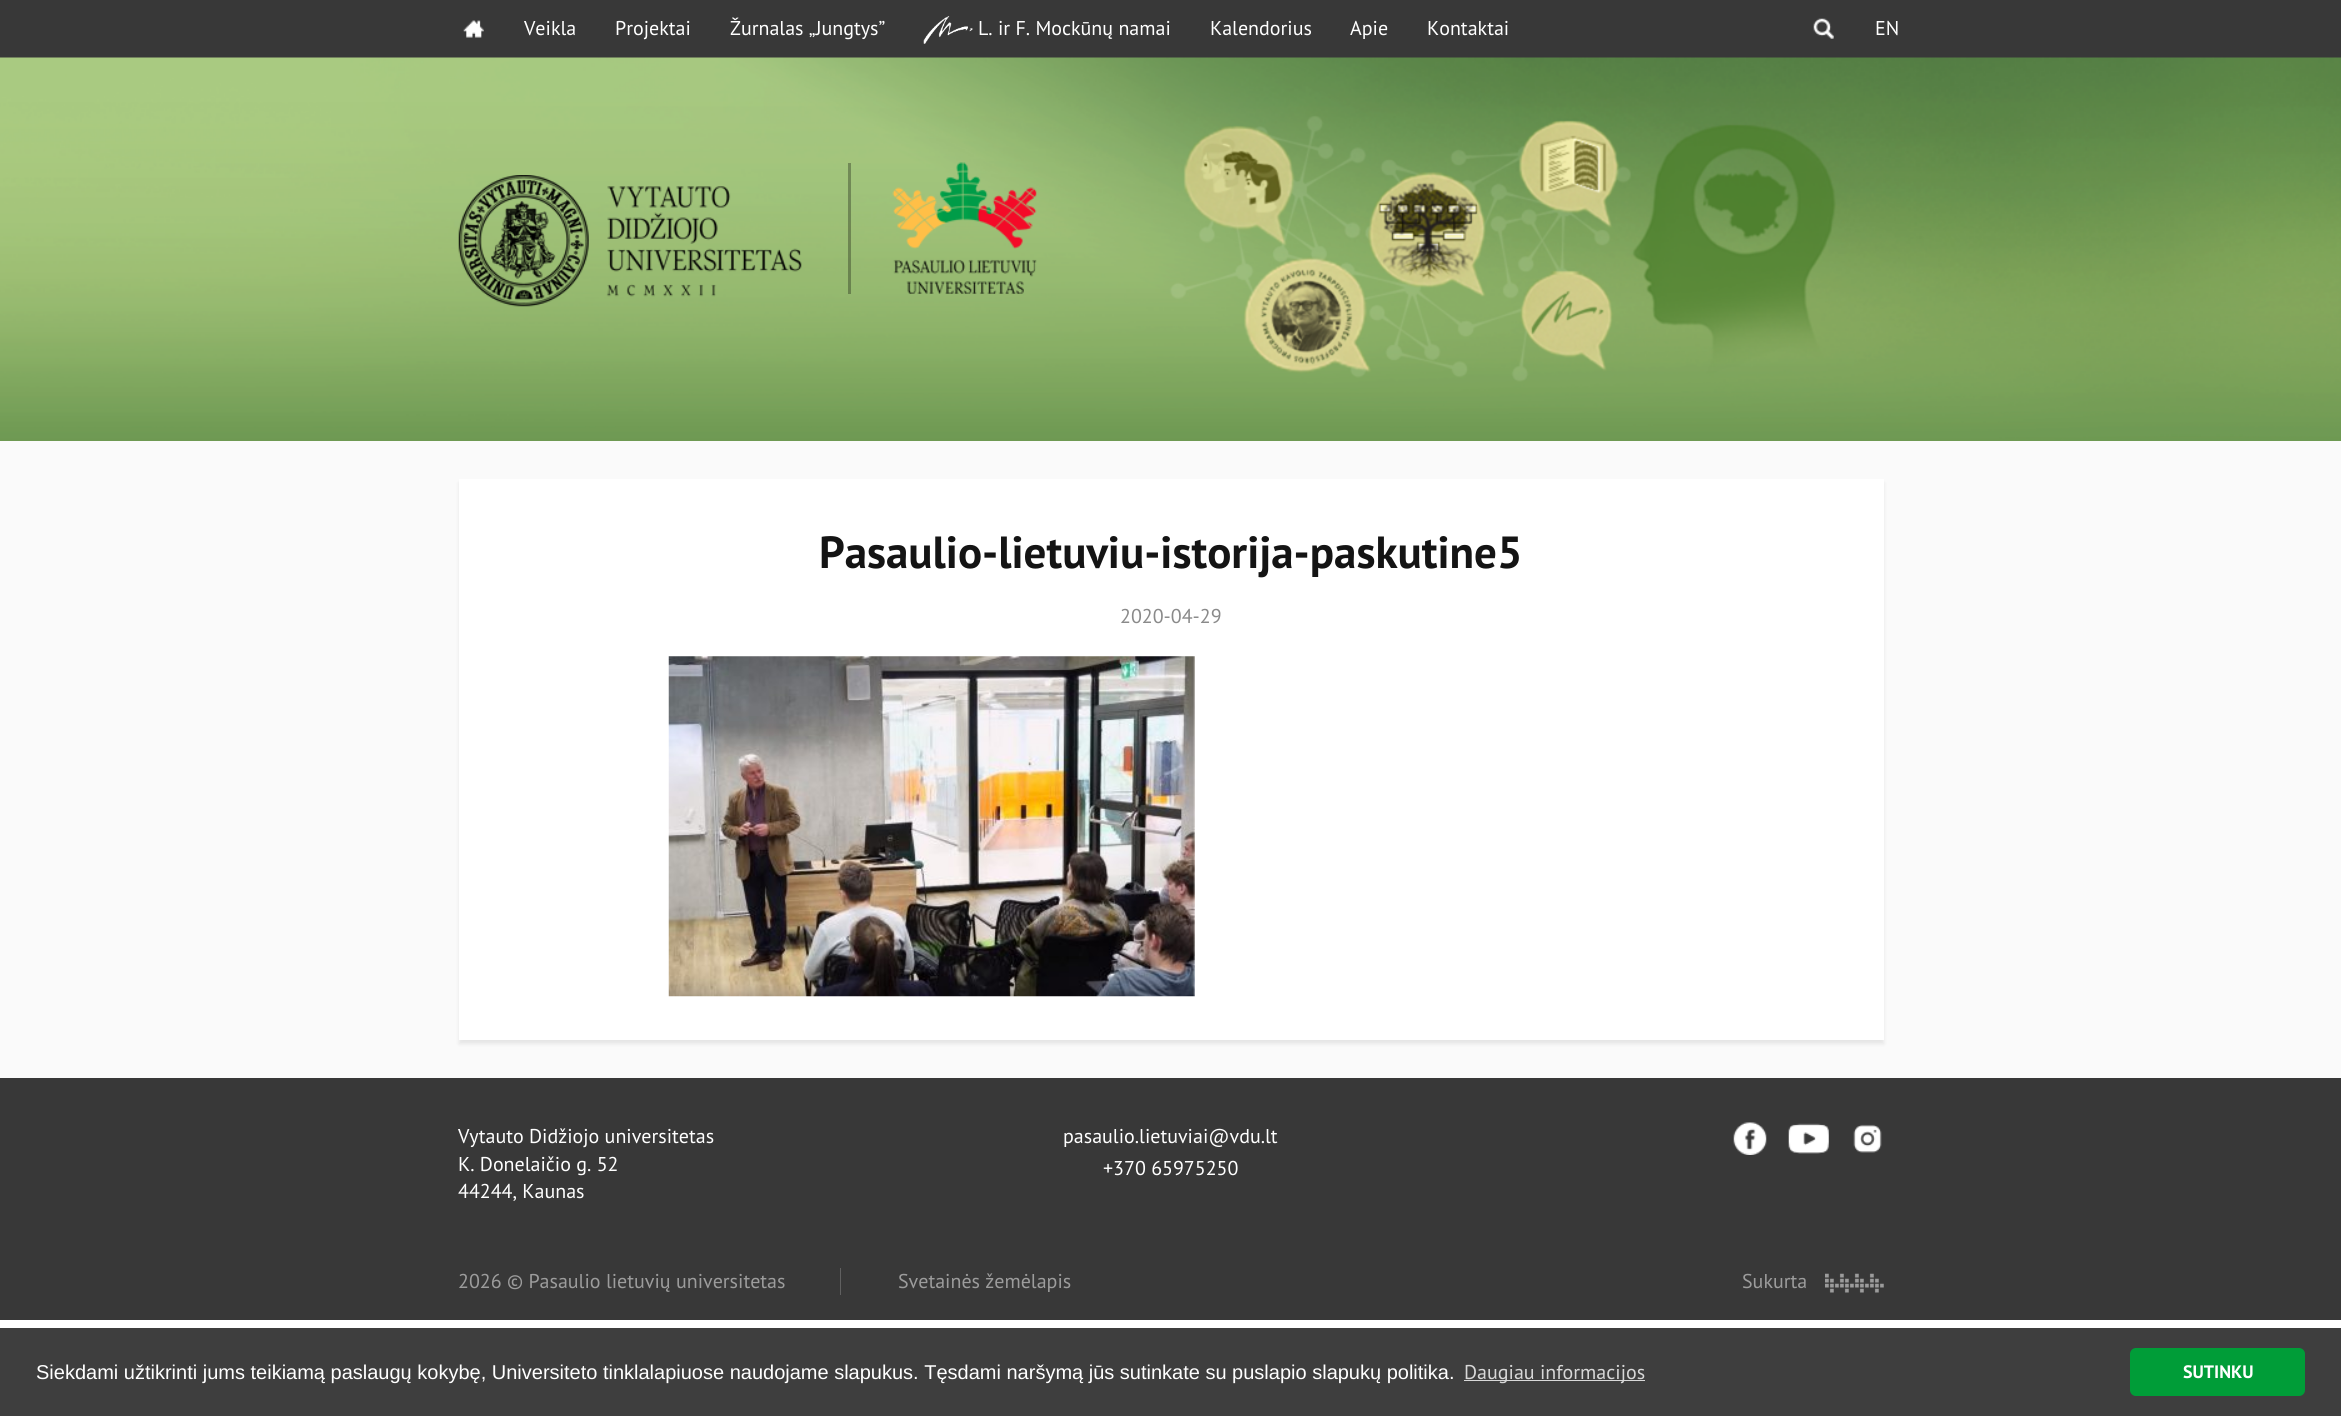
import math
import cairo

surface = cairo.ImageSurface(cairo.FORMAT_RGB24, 2341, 1416)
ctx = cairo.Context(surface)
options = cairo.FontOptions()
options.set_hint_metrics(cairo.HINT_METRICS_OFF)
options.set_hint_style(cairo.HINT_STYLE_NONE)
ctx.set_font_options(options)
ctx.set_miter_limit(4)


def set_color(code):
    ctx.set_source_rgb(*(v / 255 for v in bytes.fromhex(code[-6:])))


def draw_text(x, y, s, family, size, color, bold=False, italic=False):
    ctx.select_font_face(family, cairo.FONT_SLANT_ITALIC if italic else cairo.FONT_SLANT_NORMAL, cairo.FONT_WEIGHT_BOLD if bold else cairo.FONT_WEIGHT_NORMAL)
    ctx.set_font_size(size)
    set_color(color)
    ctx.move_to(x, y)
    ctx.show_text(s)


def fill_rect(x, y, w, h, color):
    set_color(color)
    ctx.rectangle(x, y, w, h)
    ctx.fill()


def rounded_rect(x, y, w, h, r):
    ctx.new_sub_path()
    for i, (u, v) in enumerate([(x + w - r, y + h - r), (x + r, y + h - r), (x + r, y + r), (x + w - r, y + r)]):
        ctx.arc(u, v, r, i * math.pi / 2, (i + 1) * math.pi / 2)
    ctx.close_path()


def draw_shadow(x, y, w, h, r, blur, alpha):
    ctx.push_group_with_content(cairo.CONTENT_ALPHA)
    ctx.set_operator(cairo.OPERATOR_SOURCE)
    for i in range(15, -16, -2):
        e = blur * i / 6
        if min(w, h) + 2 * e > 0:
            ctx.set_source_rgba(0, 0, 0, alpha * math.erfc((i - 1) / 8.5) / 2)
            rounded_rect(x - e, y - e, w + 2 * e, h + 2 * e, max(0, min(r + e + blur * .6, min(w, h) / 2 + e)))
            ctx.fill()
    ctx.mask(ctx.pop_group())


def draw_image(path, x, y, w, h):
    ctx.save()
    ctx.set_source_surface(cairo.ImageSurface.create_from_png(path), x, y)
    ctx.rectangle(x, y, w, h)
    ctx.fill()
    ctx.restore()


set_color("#ffffff")
ctx.paint()
fill_rect(0, 0, 2341, 58, "#383838")
draw_image("assets/img1.png", 463, 20, 21, 18)
draw_text(524, 35, "Veikla", "PT Sans", 20, "#ffffff")
draw_text(615, 35, "Projektai", "PT Sans", 20, "#ffffff")
draw_text(730, 35, "Žurnalas „Jungtys”", "PT Sans", 20, "#ffffff")
draw_image("assets/img2.png", 923, 16, 50, 28)
draw_text(978, 35, "L. ir F. Mockūnų namai", "PT Sans", 20, "#ffffff")
draw_text(1210, 35, "Kalendorius", "PT Sans", 20, "#ffffff")
draw_text(1350, 35, "Apie", "PT Sans", 20, "#ffffff")
draw_text(1427, 35, "Kontaktai", "PT Sans", 20, "#ffffff")
draw_image("assets/img3.png", 1813, 18, 21, 21)
draw_text(1875, 35, "EN", "PT Sans", 20, "#ffffff")
draw_image("assets/img4.png", 0, 57, 2341, 384)
draw_image("assets/img5.png", 458, 175, 344, 132)
ctx.set_source_rgba(0, 0, 0, 0.3)
ctx.rectangle(848, 163, 3, 131)
ctx.fill()
draw_image("assets/img6.png", 892, 162, 145, 132)
fill_rect(0, 441, 2341, 637, "#fafafa")
set_color("#050505")
draw_shadow(459, 483, 1425, 561, 0, 2, 0.08)
fill_rect(459, 479, 1425, 561, "#ffffff")
draw_text(819, 568, "Pasaulio-lietuviu-istorija-paskutine5", "PT Sans", 45, "#141414", bold=True)
draw_text(1120, 623, "2020-04-29", "PT Sans", 20, "#8a8a8a")
draw_image("assets/img7.png", 668, 656, 527, 341)
fill_rect(0, 1078, 2341, 242, "#383838")
draw_text(458, 1143, "Vytauto Didžiojo universitetas", "PT Sans", 20, "#ffffff")
draw_text(458, 1171, "K. Donelaičio g. 52", "PT Sans", 20, "#ffffff")
draw_text(458, 1198, "44244, Kaunas", "PT Sans", 20, "#ffffff")
draw_text(1063, 1143, "pasaulio.lietuviai@vdu.lt", "PT Sans", 20, "#ffffff")
draw_text(1103, 1175, "+370 65975250", "PT Sans", 20, "#ffffff")
draw_image("assets/img8.png", 1733, 1122, 34, 33)
draw_image("assets/img9.png", 1788, 1123, 41, 31)
draw_image("assets/img10.png", 1853, 1124, 29, 29)
draw_text(458, 1288, "2026 © Pasaulio lietuvių universitetas", "PT Sans", 20, "#9c9c9c")
fill_rect(840, 1268, 1, 27, "#606060")
draw_text(898, 1288, "Svetainės žemėlapis", "PT Sans", 20, "#9c9c9c")
draw_text(1742, 1288, "Sukurta", "PT Sans", 20, "#9c9c9c")
draw_image("assets/img11.png", 1825, 1273, 59, 20)
fill_rect(0, 1328, 2341, 88, "#3e3e3e")
draw_text(36, 1379, "Siekdami užtikrinti jums teikiamą paslaugų kokybę, Universiteto tinklalapiuose naudojame slapukus. Tęsdami naršymą jūs sutinkate su puslapio slapukų politika.", "Liberation Sans", 20, "#ffffff")
fill_rect(1464, 1380, 181, 1, "#d8d8d8")
draw_text(1464, 1379, "Daugiau informacijos", "PT Sans", 20, "#d8d8d8")
set_color("#009d38")
rounded_rect(2130, 1348, 175, 48, 6)
ctx.fill()
draw_text(2183, 1378, "SUTINKU", "PT Sans", 18, "#ffffff", bold=True)
surface.write_to_png("output.png")
